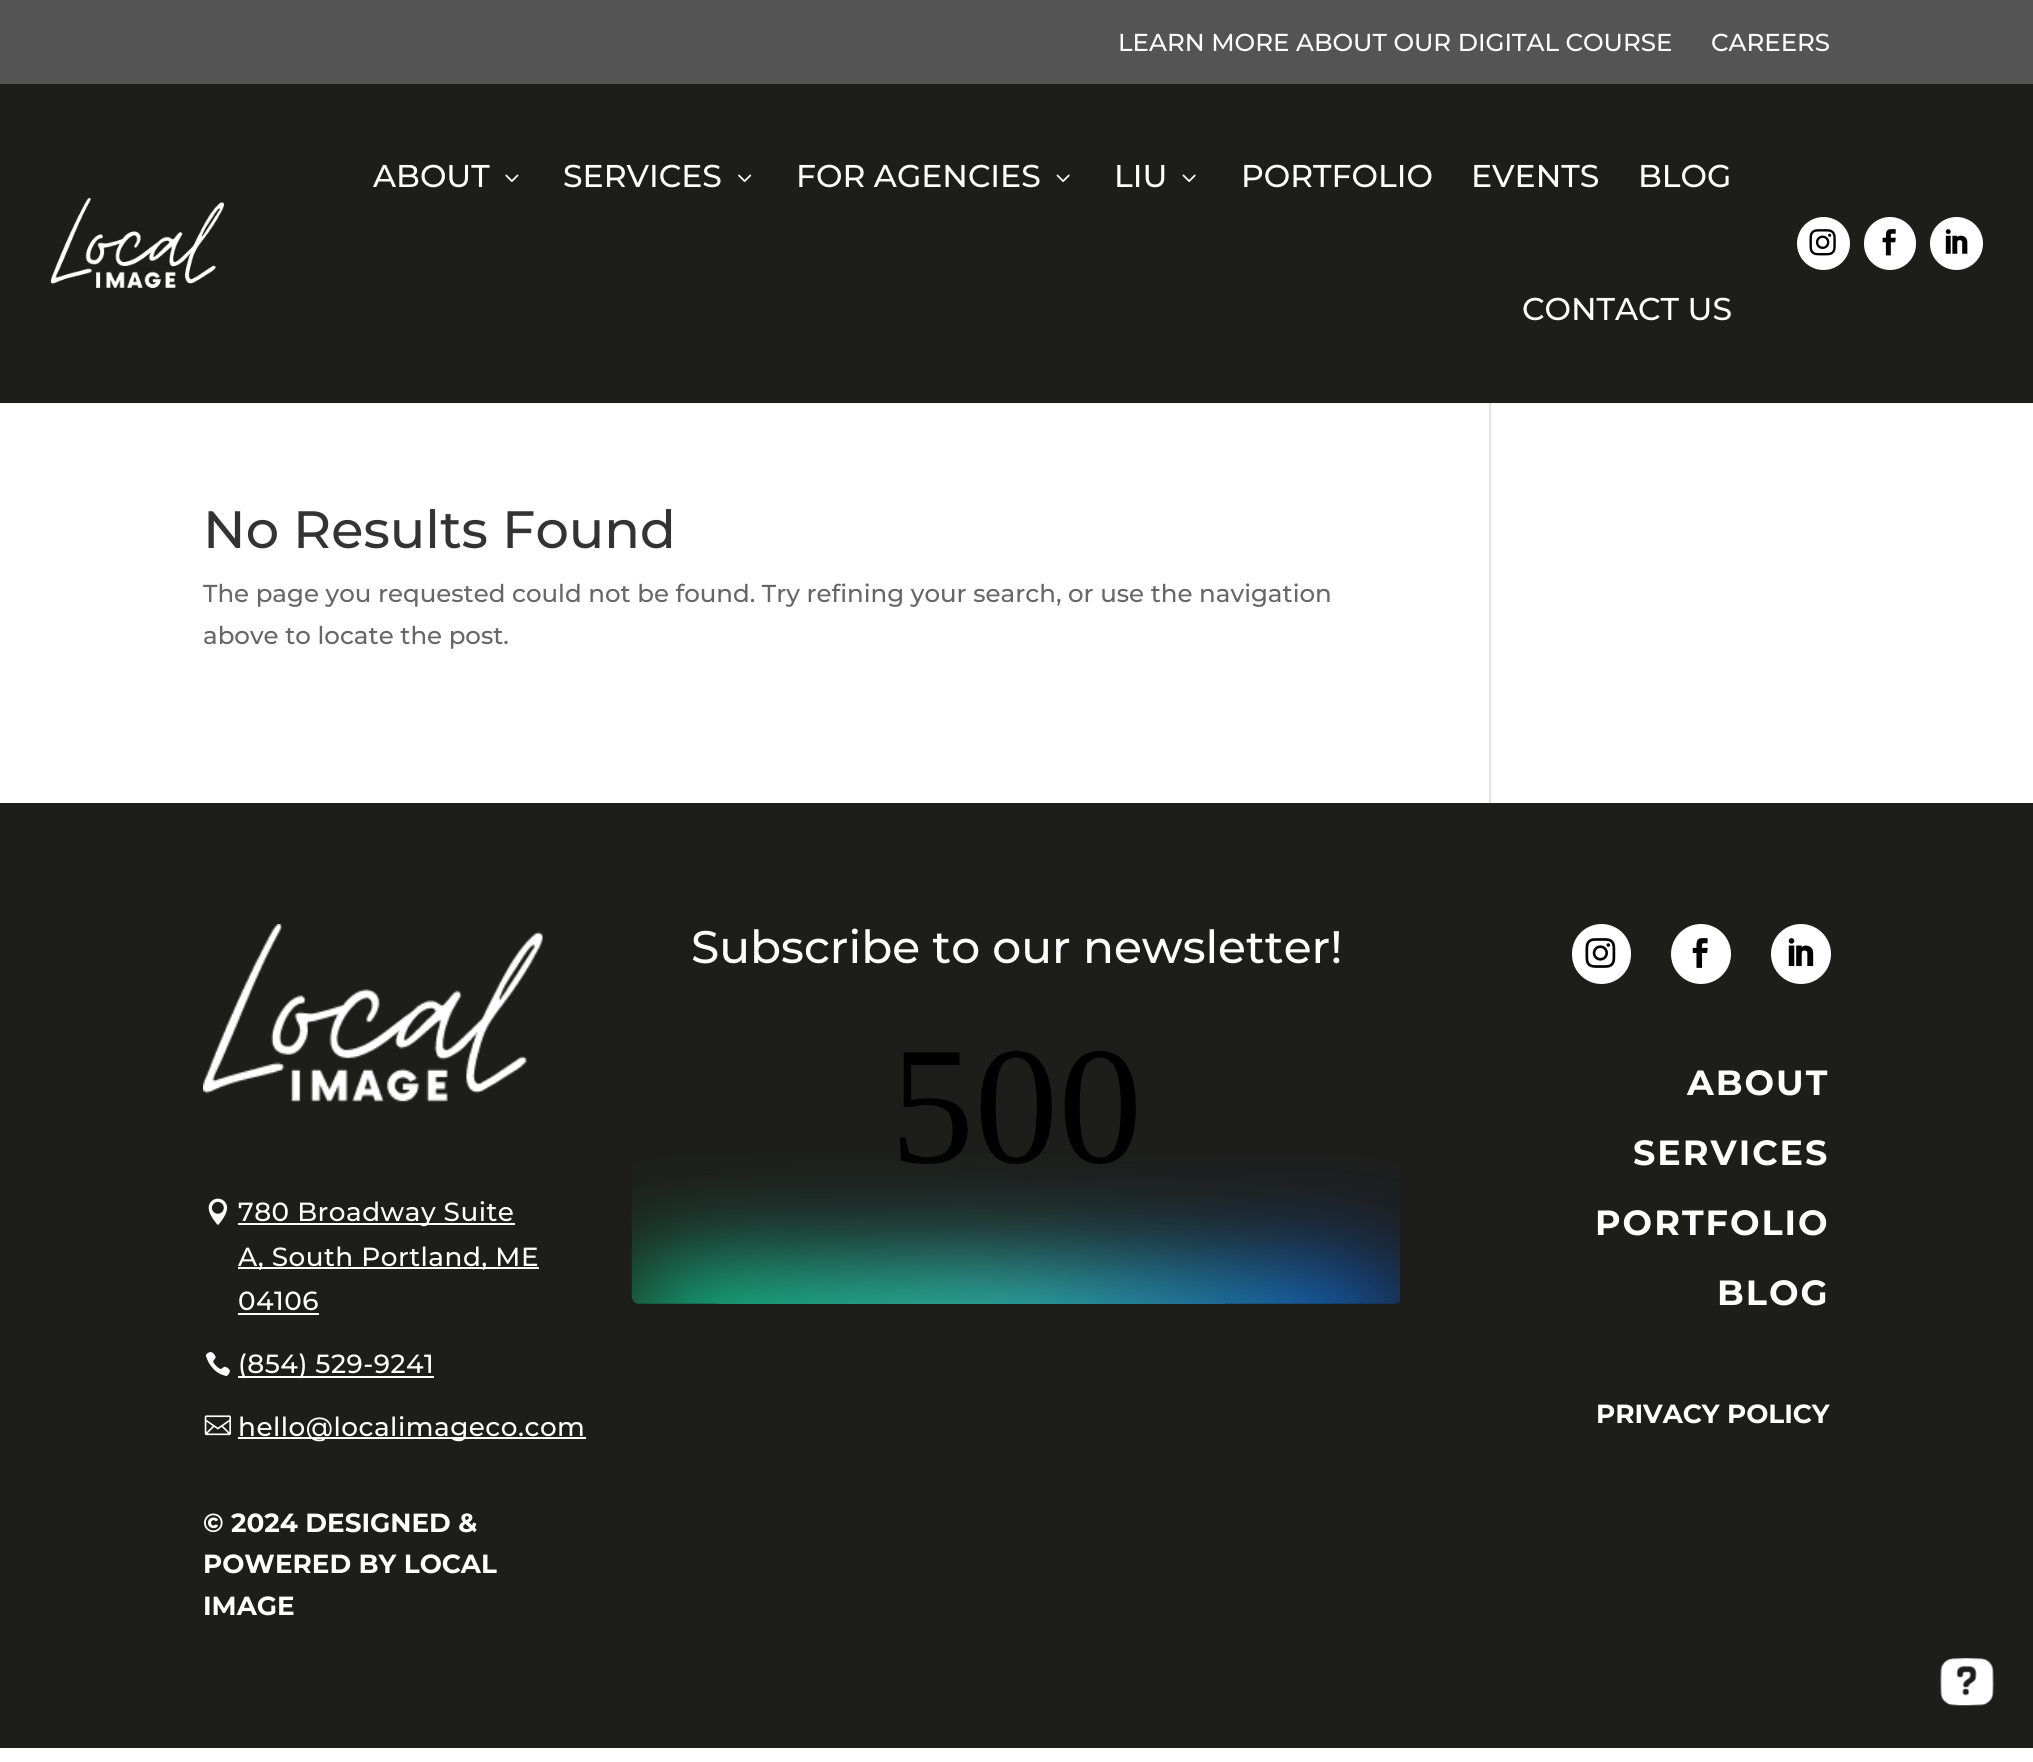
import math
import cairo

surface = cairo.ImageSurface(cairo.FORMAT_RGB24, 2033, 1762)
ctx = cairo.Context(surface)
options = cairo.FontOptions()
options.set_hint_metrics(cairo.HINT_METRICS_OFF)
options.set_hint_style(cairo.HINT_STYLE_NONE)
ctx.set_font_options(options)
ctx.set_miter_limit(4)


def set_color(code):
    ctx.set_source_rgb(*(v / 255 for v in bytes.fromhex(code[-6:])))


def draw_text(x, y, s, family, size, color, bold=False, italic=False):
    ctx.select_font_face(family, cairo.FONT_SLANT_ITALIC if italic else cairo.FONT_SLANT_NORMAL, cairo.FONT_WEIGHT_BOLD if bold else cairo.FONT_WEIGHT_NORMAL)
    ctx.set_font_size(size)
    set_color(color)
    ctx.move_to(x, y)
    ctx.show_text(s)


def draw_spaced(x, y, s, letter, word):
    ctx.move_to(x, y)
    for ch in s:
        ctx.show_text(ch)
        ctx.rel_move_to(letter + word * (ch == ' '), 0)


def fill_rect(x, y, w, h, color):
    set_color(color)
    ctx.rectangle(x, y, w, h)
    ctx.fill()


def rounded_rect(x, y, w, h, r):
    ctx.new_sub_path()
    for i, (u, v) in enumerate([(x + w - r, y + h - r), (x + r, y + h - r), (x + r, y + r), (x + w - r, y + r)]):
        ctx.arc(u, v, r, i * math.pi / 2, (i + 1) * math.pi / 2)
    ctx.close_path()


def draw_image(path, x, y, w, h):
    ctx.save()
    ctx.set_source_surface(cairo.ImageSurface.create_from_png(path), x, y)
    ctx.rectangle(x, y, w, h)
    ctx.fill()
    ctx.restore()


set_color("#ffffff")
ctx.paint()
fill_rect(0, 0, 2033, 84, "#545454")
draw_text(1118, 51, "LEARN MORE ABOUT OUR DIGITAL COURSE", "Montserrat Medium", 24.5, "#ffffff")
draw_text(1711, 51, "CAREERS", "Montserrat Medium", 24.5, "#ffffff")
fill_rect(0, 84, 2033, 319, "#1d1d1b")
draw_image("assets/img1.png", 50, 197, 174, 91)
draw_text(373, 187, "ABOUT", "Montserrat Medium", 31.5, "#ffffff")
draw_image("assets/img2.png", 505, 174, 14, 8)
draw_text(563, 187, "SERVICES", "Montserrat Medium", 31.5, "#ffffff")
draw_image("assets/img3.png", 738, 174, 14, 8)
draw_text(796, 187, "FOR AGENCIES", "Montserrat Medium", 31.5, "#ffffff")
draw_image("assets/img4.png", 1056, 174, 14, 8)
draw_text(1114, 187, "LIU", "Montserrat Medium", 31.5, "#ffffff")
draw_image("assets/img4.png", 1182, 174, 14, 8)
draw_text(1241, 187, "PORTFOLIO", "Montserrat Medium", 31.5, "#ffffff")
draw_text(1471, 187, "EVENTS", "Montserrat Medium", 31.5, "#ffffff")
draw_text(1638, 187, "BLOG", "Montserrat Medium", 31.5, "#ffffff")
draw_text(1522, 320, "CONTACT US", "Montserrat Medium", 31.5, "#ffffff")
ctx.new_path()
ctx.arc(1823.5, 243.5, 26.5, 0, 2 * math.pi)
ctx.fill()
draw_image("assets/img5.png", 1809, 229, 27, 27)
rounded_rect(1864, 217, 52, 53, 26)
ctx.fill()
draw_image("assets/img6.png", 1882, 229, 14, 27)
ctx.arc(1956.5, 243.5, 26.5, 0, 2 * math.pi)
ctx.fill()
draw_image("assets/img7.png", 1945, 229, 23, 25)
draw_text(203, 548, "No Results Found", "Montserrat Medium", 52.5, "#333333")
draw_text(203, 602, "The page you requested could not be found. Try refining your search, or use the navigation", "Montserrat Medium", 24.5, "#666666")
draw_text(203, 644, "above to locate the post.", "Montserrat Medium", 24.5, "#666666")
fill_rect(1489, 403, 2, 400, "#e2e2e2")
fill_rect(0, 803, 2033, 945, "#1d1d1b")
draw_text(691, 963, "Subscribe to our newsletter!", "Montserrat Medium", 45.5, "#ffffff")
draw_image("assets/img8.png", 631, 1051, 769, 253)
draw_image("assets/img9.png", 203, 924, 340, 178)
draw_image("assets/img10.png", 208, 1198, 20, 27)
fill_rect(238, 1223, 277, 2, "#ffffff")
ctx.set_font_size(26.25)
draw_spaced(238, 1221, "780 Broadway Suite", 0.5, 0)
fill_rect(238, 1267, 301, 2, "#ffffff")
draw_spaced(238, 1266, "A, South Portland, ME", 0.5, 0)
draw_spaced(238, 1310, "04106", 0.5, 0)
fill_rect(238, 1313, 81, 2, "#ffffff")
draw_image("assets/img11.png", 205, 1352, 25, 24)
fill_rect(238, 1376, 196, 2, "#ffffff")
draw_spaced(238, 1373, "(854) 529-9241", 0.5, 0)
draw_image("assets/img12.png", 204, 1415, 27, 21)
fill_rect(238, 1437, 348, 2, "#ffffff")
draw_spaced(238, 1436, "hello@localimageco.com", 0.5, 0)
draw_text(203, 1532, "© 2024 DESIGNED &", "Montserrat", 26.25, "#ffffff", bold=True)
draw_text(203, 1573, "POWERED BY LOCAL", "Montserrat", 26.25, "#ffffff", bold=True)
draw_text(203, 1615, "IMAGE", "Montserrat", 26.25, "#ffffff", bold=True)
rounded_rect(1572, 924, 59, 60, 29.5)
ctx.fill()
draw_image("assets/img13.png", 1585, 938, 31, 30)
ctx.arc(1701, 954, 30, 0, 2 * math.pi)
ctx.fill()
draw_image("assets/img14.png", 1692, 938, 16, 30)
ctx.arc(1801, 954, 30, 0, 2 * math.pi)
ctx.fill()
draw_image("assets/img15.png", 1788, 938, 26, 28)
ctx.set_font_size(35)
draw_spaced(1687, 1095, "ABOUT", 2, 0)
draw_spaced(1633, 1165, "SERVICES", 2, 0)
draw_spaced(1595, 1235, "PORTFOLIO", 2, 0)
draw_spaced(1717, 1305, "BLOG", 2, 0)
draw_text(1596, 1423, "PRIVACY POLICY", "Montserrat", 26.25, "#ffffff", bold=True)
draw_image("assets/img16.png", 1940, 1658, 54, 48)
surface.write_to_png("output.png")
